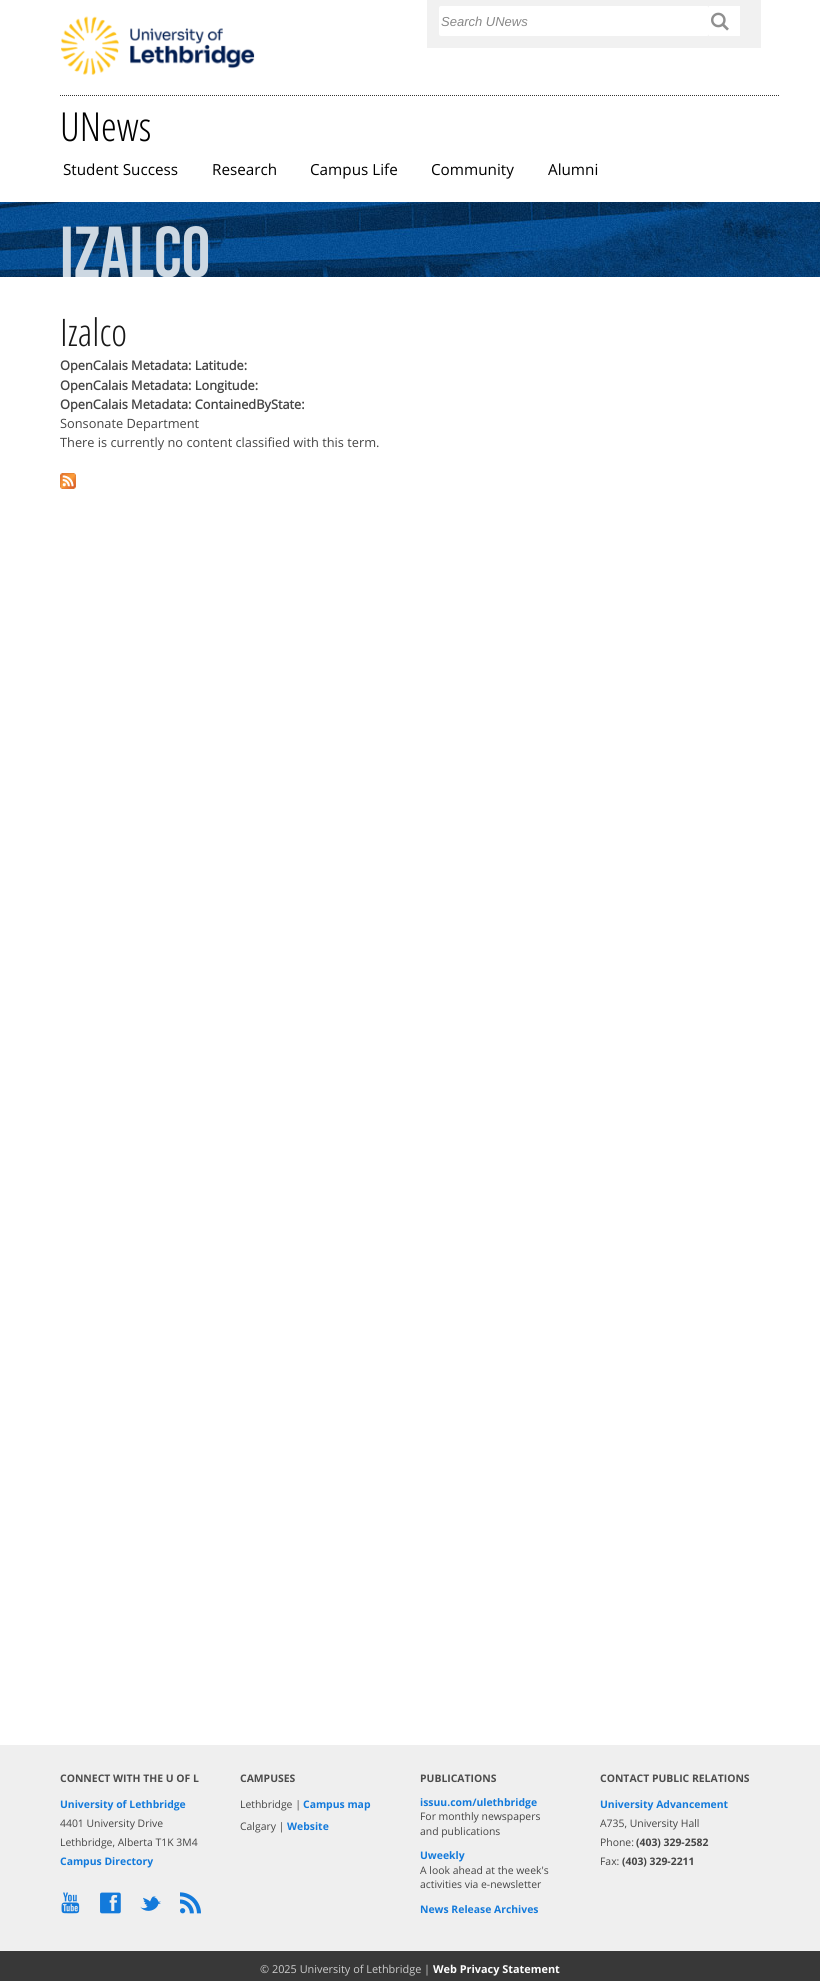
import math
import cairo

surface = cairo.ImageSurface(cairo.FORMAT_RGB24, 820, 1981)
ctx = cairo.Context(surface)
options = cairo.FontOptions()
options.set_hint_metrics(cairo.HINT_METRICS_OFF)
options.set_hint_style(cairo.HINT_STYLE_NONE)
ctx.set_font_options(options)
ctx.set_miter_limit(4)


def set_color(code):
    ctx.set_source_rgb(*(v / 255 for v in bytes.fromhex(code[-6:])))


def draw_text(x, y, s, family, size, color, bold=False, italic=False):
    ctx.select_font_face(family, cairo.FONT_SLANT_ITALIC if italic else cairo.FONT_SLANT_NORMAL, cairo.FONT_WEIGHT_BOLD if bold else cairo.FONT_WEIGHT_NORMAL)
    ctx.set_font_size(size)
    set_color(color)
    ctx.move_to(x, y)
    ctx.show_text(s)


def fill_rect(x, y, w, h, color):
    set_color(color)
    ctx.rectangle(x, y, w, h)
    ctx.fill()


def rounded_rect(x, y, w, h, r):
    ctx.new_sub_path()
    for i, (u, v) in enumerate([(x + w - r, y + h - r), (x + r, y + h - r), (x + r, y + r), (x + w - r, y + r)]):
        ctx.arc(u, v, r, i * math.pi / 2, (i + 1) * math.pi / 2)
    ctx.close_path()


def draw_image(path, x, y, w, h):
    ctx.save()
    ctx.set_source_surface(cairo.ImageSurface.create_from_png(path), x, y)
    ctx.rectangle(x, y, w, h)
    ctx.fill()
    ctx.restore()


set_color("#ffffff")
ctx.paint()
fill_rect(427, 0, 334, 48, "#f1f1f1")
set_color("#ffffff")
rounded_rect(439, 6, 270, 30, 2)
ctx.fill()
draw_text(441, 26, "Search UNews", "Liberation Sans", 13, "#888888", italic=True)
fill_rect(709, 6, 31, 30, "#ffffff")
draw_image("assets/img1.png", 711, 12, 18, 19)
draw_image("assets/img2.png", 61, 16, 194, 59)
ctx.new_path()
ctx.move_to(60, 95.5)
ctx.line_to(780, 95.5)
set_color("#333333")
ctx.set_line_width(1)
ctx.set_dash([1, 1])
ctx.stroke()
draw_text(60, 141, "UNews", "Open Sans Light", 40, "#000000")
draw_text(63, 175, "Student Success", "Open Sans", 15.25, "#000000")
draw_text(212, 175, "Research", "Open Sans", 15.25, "#000000")
draw_text(310, 175, "Campus Life", "Open Sans", 15.25, "#000000")
draw_text(431, 175, "Community", "Open Sans", 15.25, "#000000")
draw_text(548, 175, "Alumni", "Open Sans", 15.25, "#000000")
draw_image("assets/img3.png", 0, 202, 820, 75)
ctx.save()
ctx.rectangle(0, 202, 820, 75)
ctx.clip()
draw_text(60, 277, "Izalco", "Bebas Neue", 72, "#cdd8e2")
ctx.restore()
draw_text(60, 346, "Izalco", "Open Sans Light", 38, "#181818")
draw_text(60, 370, "OpenCalais Metadata: Latitude:", "Open Sans", 12.8, "#444444", bold=True)
draw_text(60, 390, "OpenCalais Metadata: Longitude:", "Open Sans", 12.8, "#444444", bold=True)
draw_text(60, 409, "OpenCalais Metadata: ContainedByState:", "Open Sans", 12.8, "#444444", bold=True)
draw_text(60, 428, "Sonsonate Department", "Open Sans", 12.8, "#444444")
draw_text(60, 447, "There is currently no content classified with this term.", "Open Sans", 12.8, "#444444")
draw_image("assets/img4.png", 60, 473, 16, 16)
fill_rect(0, 1745, 820, 206, "#efefef")
draw_text(60, 1782, "CONNECT WITH THE U OF L", "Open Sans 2", 10.4, "#4c4c4c", bold=True)
draw_text(60, 1808, "University of Lethbridge", "Open Sans 2", 10.4, "#137adb", bold=True)
draw_text(60, 1827, "4401 University Drive", "Open Sans", 10.4, "#444444")
draw_text(60, 1846, "Lethbridge, Alberta T1K 3M4", "Open Sans", 10.4, "#444444")
draw_text(60, 1865, "Campus Directory", "Open Sans 2", 10.4, "#137adb", bold=True)
draw_image("assets/img5.png", 61, 1892, 19, 22)
draw_image("assets/img6.png", 100, 1892, 21, 22)
draw_image("assets/img7.png", 140, 1896, 21, 15)
draw_text(180, 1912, "⇱", "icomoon", 21, "#137adb")
draw_text(240, 1782, "CAMPUSES", "Open Sans 2", 10.4, "#4c4c4c", bold=True)
draw_text(240, 1808, "Lethbridge |", "Open Sans", 10.4, "#444444")
draw_text(303, 1808, "Campus map", "Open Sans 2", 10.4, "#137adb", bold=True)
draw_text(240, 1830, "Calgary |", "Open Sans", 10.4, "#444444")
draw_text(287, 1830, "Website", "Open Sans 2", 10.4, "#137adb", bold=True)
draw_text(420, 1782, "PUBLICATIONS", "Open Sans 2", 10.4, "#4c4c4c", bold=True)
draw_text(420, 1806, "issuu.com/ulethbridge", "Open Sans 2", 10.4, "#137adb", bold=True)
draw_text(420, 1820, "For monthly newspapers", "Open Sans", 10.4, "#444444")
draw_text(420, 1835, "and publications", "Open Sans", 10.4, "#444444")
draw_text(420, 1859, "Uweekly", "Open Sans 2", 10.4, "#137adb", bold=True)
draw_text(420, 1874, "A look ahead at the week's", "Open Sans", 10.4, "#444444")
draw_text(420, 1888, "activities via e-newsletter", "Open Sans", 10.4, "#444444")
draw_text(420, 1913, "News Release Archives", "Open Sans 2", 10.4, "#137adb", bold=True)
draw_text(600, 1782, "CONTACT PUBLIC RELATIONS", "Open Sans 2", 10.4, "#4c4c4c", bold=True)
draw_text(600, 1808, "University Advancement", "Open Sans 2", 10.4, "#137adb", bold=True)
draw_text(600, 1827, "A735, University Hall", "Open Sans", 10.4, "#444444")
draw_text(600, 1846, "Phone:", "Open Sans", 10.4, "#444444")
draw_text(636, 1846, "(403) 329-2582", "Open Sans 2", 10.4, "#444444", bold=True)
draw_text(600, 1865, "Fax:", "Open Sans", 10.4, "#444444")
draw_text(622, 1865, "(403) 329-2211", "Open Sans 2", 10.4, "#444444", bold=True)
fill_rect(0, 1951, 820, 30, "#383838")
draw_text(260, 1973, "© 2025 University of Lethbridge |", "Open Sans", 10.9, "#cccccc")
draw_text(433, 1973, "Web Privacy Statement", "Open Sans 2", 10.9, "#ffffff", bold=True)
surface.write_to_png("output.png")
